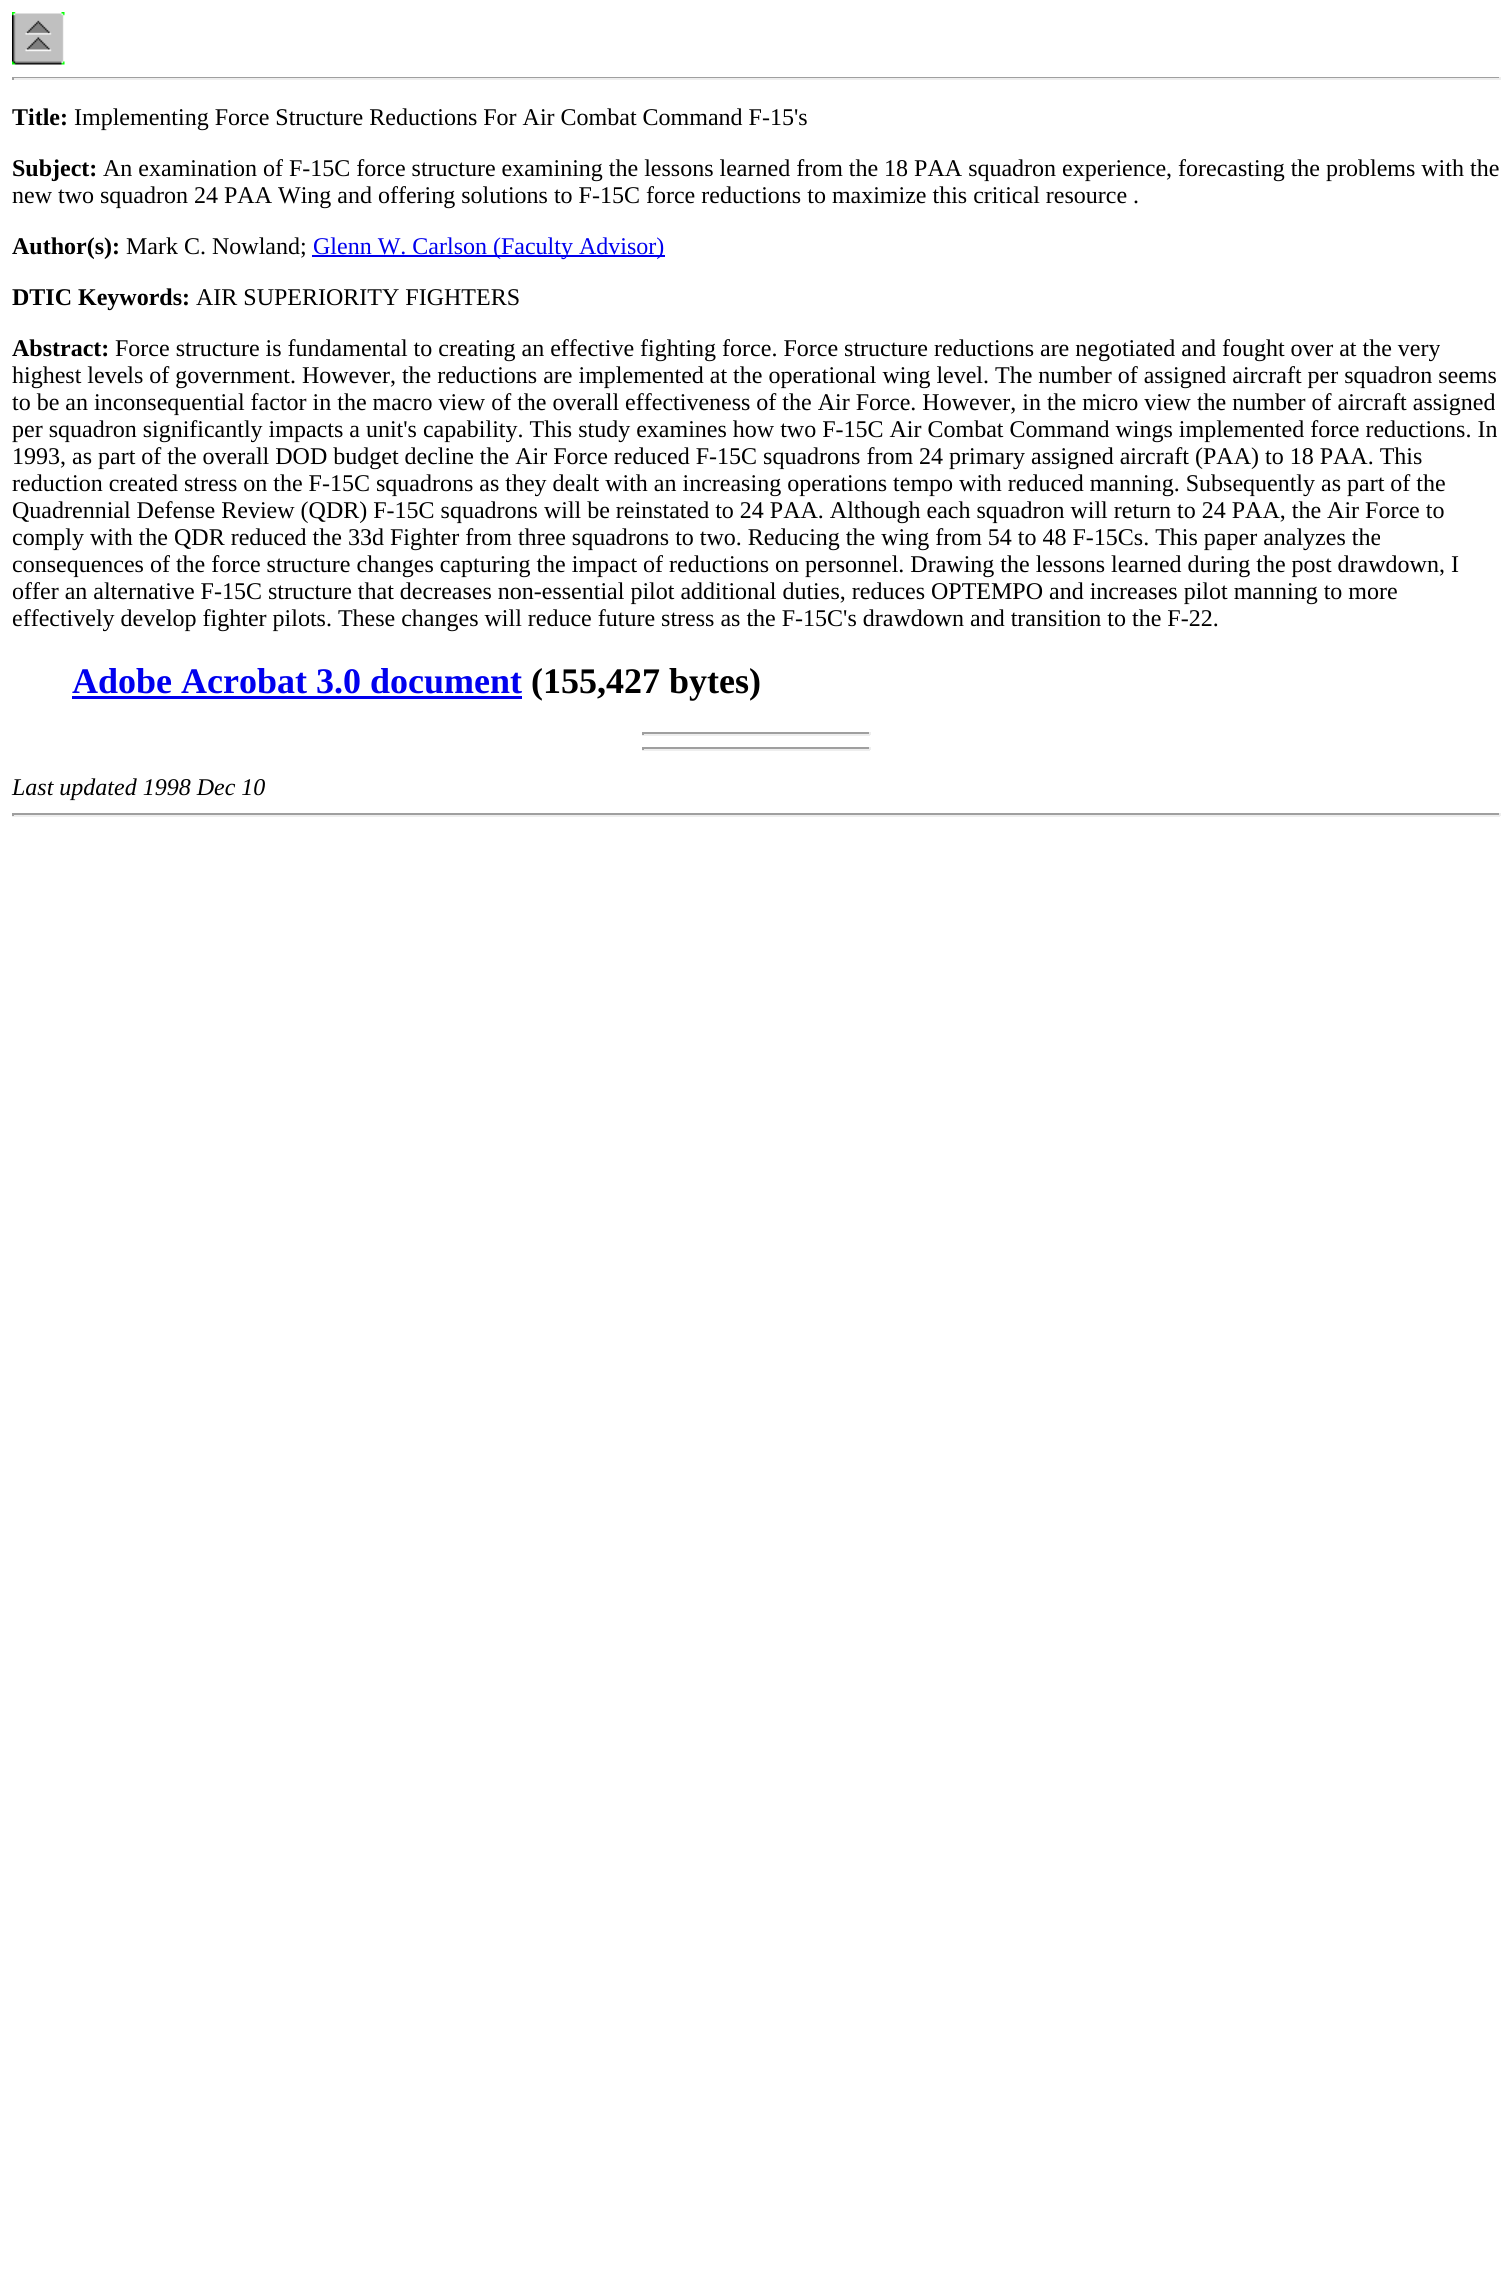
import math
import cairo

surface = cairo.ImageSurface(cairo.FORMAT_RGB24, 1511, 2276)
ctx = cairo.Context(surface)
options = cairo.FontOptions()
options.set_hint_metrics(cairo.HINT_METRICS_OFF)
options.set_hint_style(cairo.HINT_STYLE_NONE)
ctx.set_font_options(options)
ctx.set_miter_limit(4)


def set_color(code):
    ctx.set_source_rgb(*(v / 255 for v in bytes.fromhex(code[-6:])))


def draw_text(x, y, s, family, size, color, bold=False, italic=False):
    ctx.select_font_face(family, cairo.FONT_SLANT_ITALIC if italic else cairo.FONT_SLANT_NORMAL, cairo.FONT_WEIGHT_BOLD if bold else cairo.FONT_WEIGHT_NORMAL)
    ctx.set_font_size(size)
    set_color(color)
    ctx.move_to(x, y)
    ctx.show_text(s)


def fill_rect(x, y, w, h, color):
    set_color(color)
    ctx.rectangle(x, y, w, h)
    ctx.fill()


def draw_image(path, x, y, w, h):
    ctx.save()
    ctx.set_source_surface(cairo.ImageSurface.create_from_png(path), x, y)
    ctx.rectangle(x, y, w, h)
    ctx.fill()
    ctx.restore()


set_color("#ffffff")
ctx.paint()
draw_image("assets/img1.png", 12, 12, 53, 53)
fill_rect(12, 77, 1488, 1, "#9f9f9f")
fill_rect(1499, 77, 2, 3, "#eeeeee")
fill_rect(12, 78, 1488, 2, "#eeeeee")
fill_rect(12, 77, 2, 3, "#9f9f9f")
draw_text(12, 125, "Title:", "Liberation Serif", 24, "#000000", bold=True)
draw_text(74, 125, "Implementing Force Structure Reductions For Air Combat Command F-15's", "Liberation Serif", 24, "#000000")
draw_text(12, 176, "Subject:", "Liberation Serif", 24, "#000000", bold=True)
draw_text(103, 176, "An examination of F-15C force structure examining the lessons learned from the 18 PAA squadron experience, forecasting the problems with the", "Liberation Serif", 24, "#000000")
draw_text(12, 203, "new two squadron 24 PAA Wing and offering solutions to F-15C force reductions to maximize this critical resource .", "Liberation Serif", 24, "#000000")
draw_text(12, 254, "Author(s):", "Liberation Serif", 24, "#000000", bold=True)
draw_text(126, 254, "Mark C. Nowland;", "Liberation Serif", 24, "#000000")
fill_rect(312, 255, 353, 2, "#0000ee")
draw_text(313, 254, "Glenn W. Carlson (Faculty Advisor)", "Liberation Serif", 24, "#0000ee")
draw_text(12, 305, "DTIC Keywords:", "Liberation Serif", 24, "#000000", bold=True)
draw_text(196, 305, "AIR SUPERIORITY FIGHTERS", "Liberation Serif", 24, "#000000")
draw_text(12, 356, "Abstract:", "Liberation Serif", 24, "#000000", bold=True)
draw_text(115, 356, "Force structure is fundamental to creating an effective fighting force. Force structure reductions are negotiated and fought over at the very", "Liberation Serif", 24, "#000000")
draw_text(12, 383, "highest levels of government. However, the reductions are implemented at the operational wing level. The number of assigned aircraft per squadron seems", "Liberation Serif", 24, "#000000")
draw_text(12, 410, "to be an inconsequential factor in the macro view of the overall effectiveness of the Air Force. However, in the micro view the number of aircraft assigned", "Liberation Serif", 24, "#000000")
draw_text(12, 437, "per squadron significantly impacts a unit's capability. This study examines how two F-15C Air Combat Command wings implemented force reductions. In", "Liberation Serif", 24, "#000000")
draw_text(12, 464, "1993, as part of the overall DOD budget decline the Air Force reduced F-15C squadrons from 24 primary assigned aircraft (PAA) to 18 PAA. This", "Liberation Serif", 24, "#000000")
draw_text(12, 491, "reduction created stress on the F-15C squadrons as they dealt with an increasing operations tempo with reduced manning. Subsequently as part of the", "Liberation Serif", 24, "#000000")
draw_text(12, 518, "Quadrennial Defense Review (QDR) F-15C squadrons will be reinstated to 24 PAA. Although each squadron will return to 24 PAA, the Air Force to", "Liberation Serif", 24, "#000000")
draw_text(12, 545, "comply with the QDR reduced the 33d Fighter from three squadrons to two. Reducing the wing from 54 to 48 F-15Cs. This paper analyzes the", "Liberation Serif", 24, "#000000")
draw_text(12, 572, "consequences of the force structure changes capturing the impact of reductions on personnel. Drawing the lessons learned during the post drawdown, I", "Liberation Serif", 24, "#000000")
draw_text(12, 599, "offer an alternative F-15C structure that decreases non-essential pilot additional duties, reduces OPTEMPO and increases pilot manning to more", "Liberation Serif", 24, "#000000")
draw_text(12, 626, "effectively develop fighter pilots. These changes will reduce future stress as the F-15C's drawdown and transition to the F-22.", "Liberation Serif", 24, "#000000")
draw_text(72, 693, "Adobe Acrobat 3.0 document", "Liberation Serif", 36, "#0000ee", bold=True)
fill_rect(72, 696, 450, 3, "#0000ee")
draw_text(531, 693, "(155,427 bytes)", "Liberation Serif", 36, "#000000", bold=True)
fill_rect(642, 732, 228, 2, "#9f9f9f")
fill_rect(869, 732, 2, 3, "#eeeeee")
fill_rect(642, 734, 228, 2, "#eeeeee")
fill_rect(642, 732, 2, 3, "#9f9f9f")
fill_rect(642, 747, 228, 2, "#9f9f9f")
fill_rect(869, 747, 2, 3, "#eeeeee")
fill_rect(642, 749, 228, 2, "#eeeeee")
fill_rect(642, 747, 2, 3, "#9f9f9f")
draw_text(12, 795, "Last updated 1998 Dec 10", "Liberation Serif", 24, "#000000", italic=True)
fill_rect(12, 813, 1488, 2, "#9f9f9f")
fill_rect(1499, 813, 2, 3, "#eeeeee")
fill_rect(12, 815, 1488, 2, "#eeeeee")
fill_rect(12, 813, 2, 3, "#9f9f9f")
surface.write_to_png("output.png")
